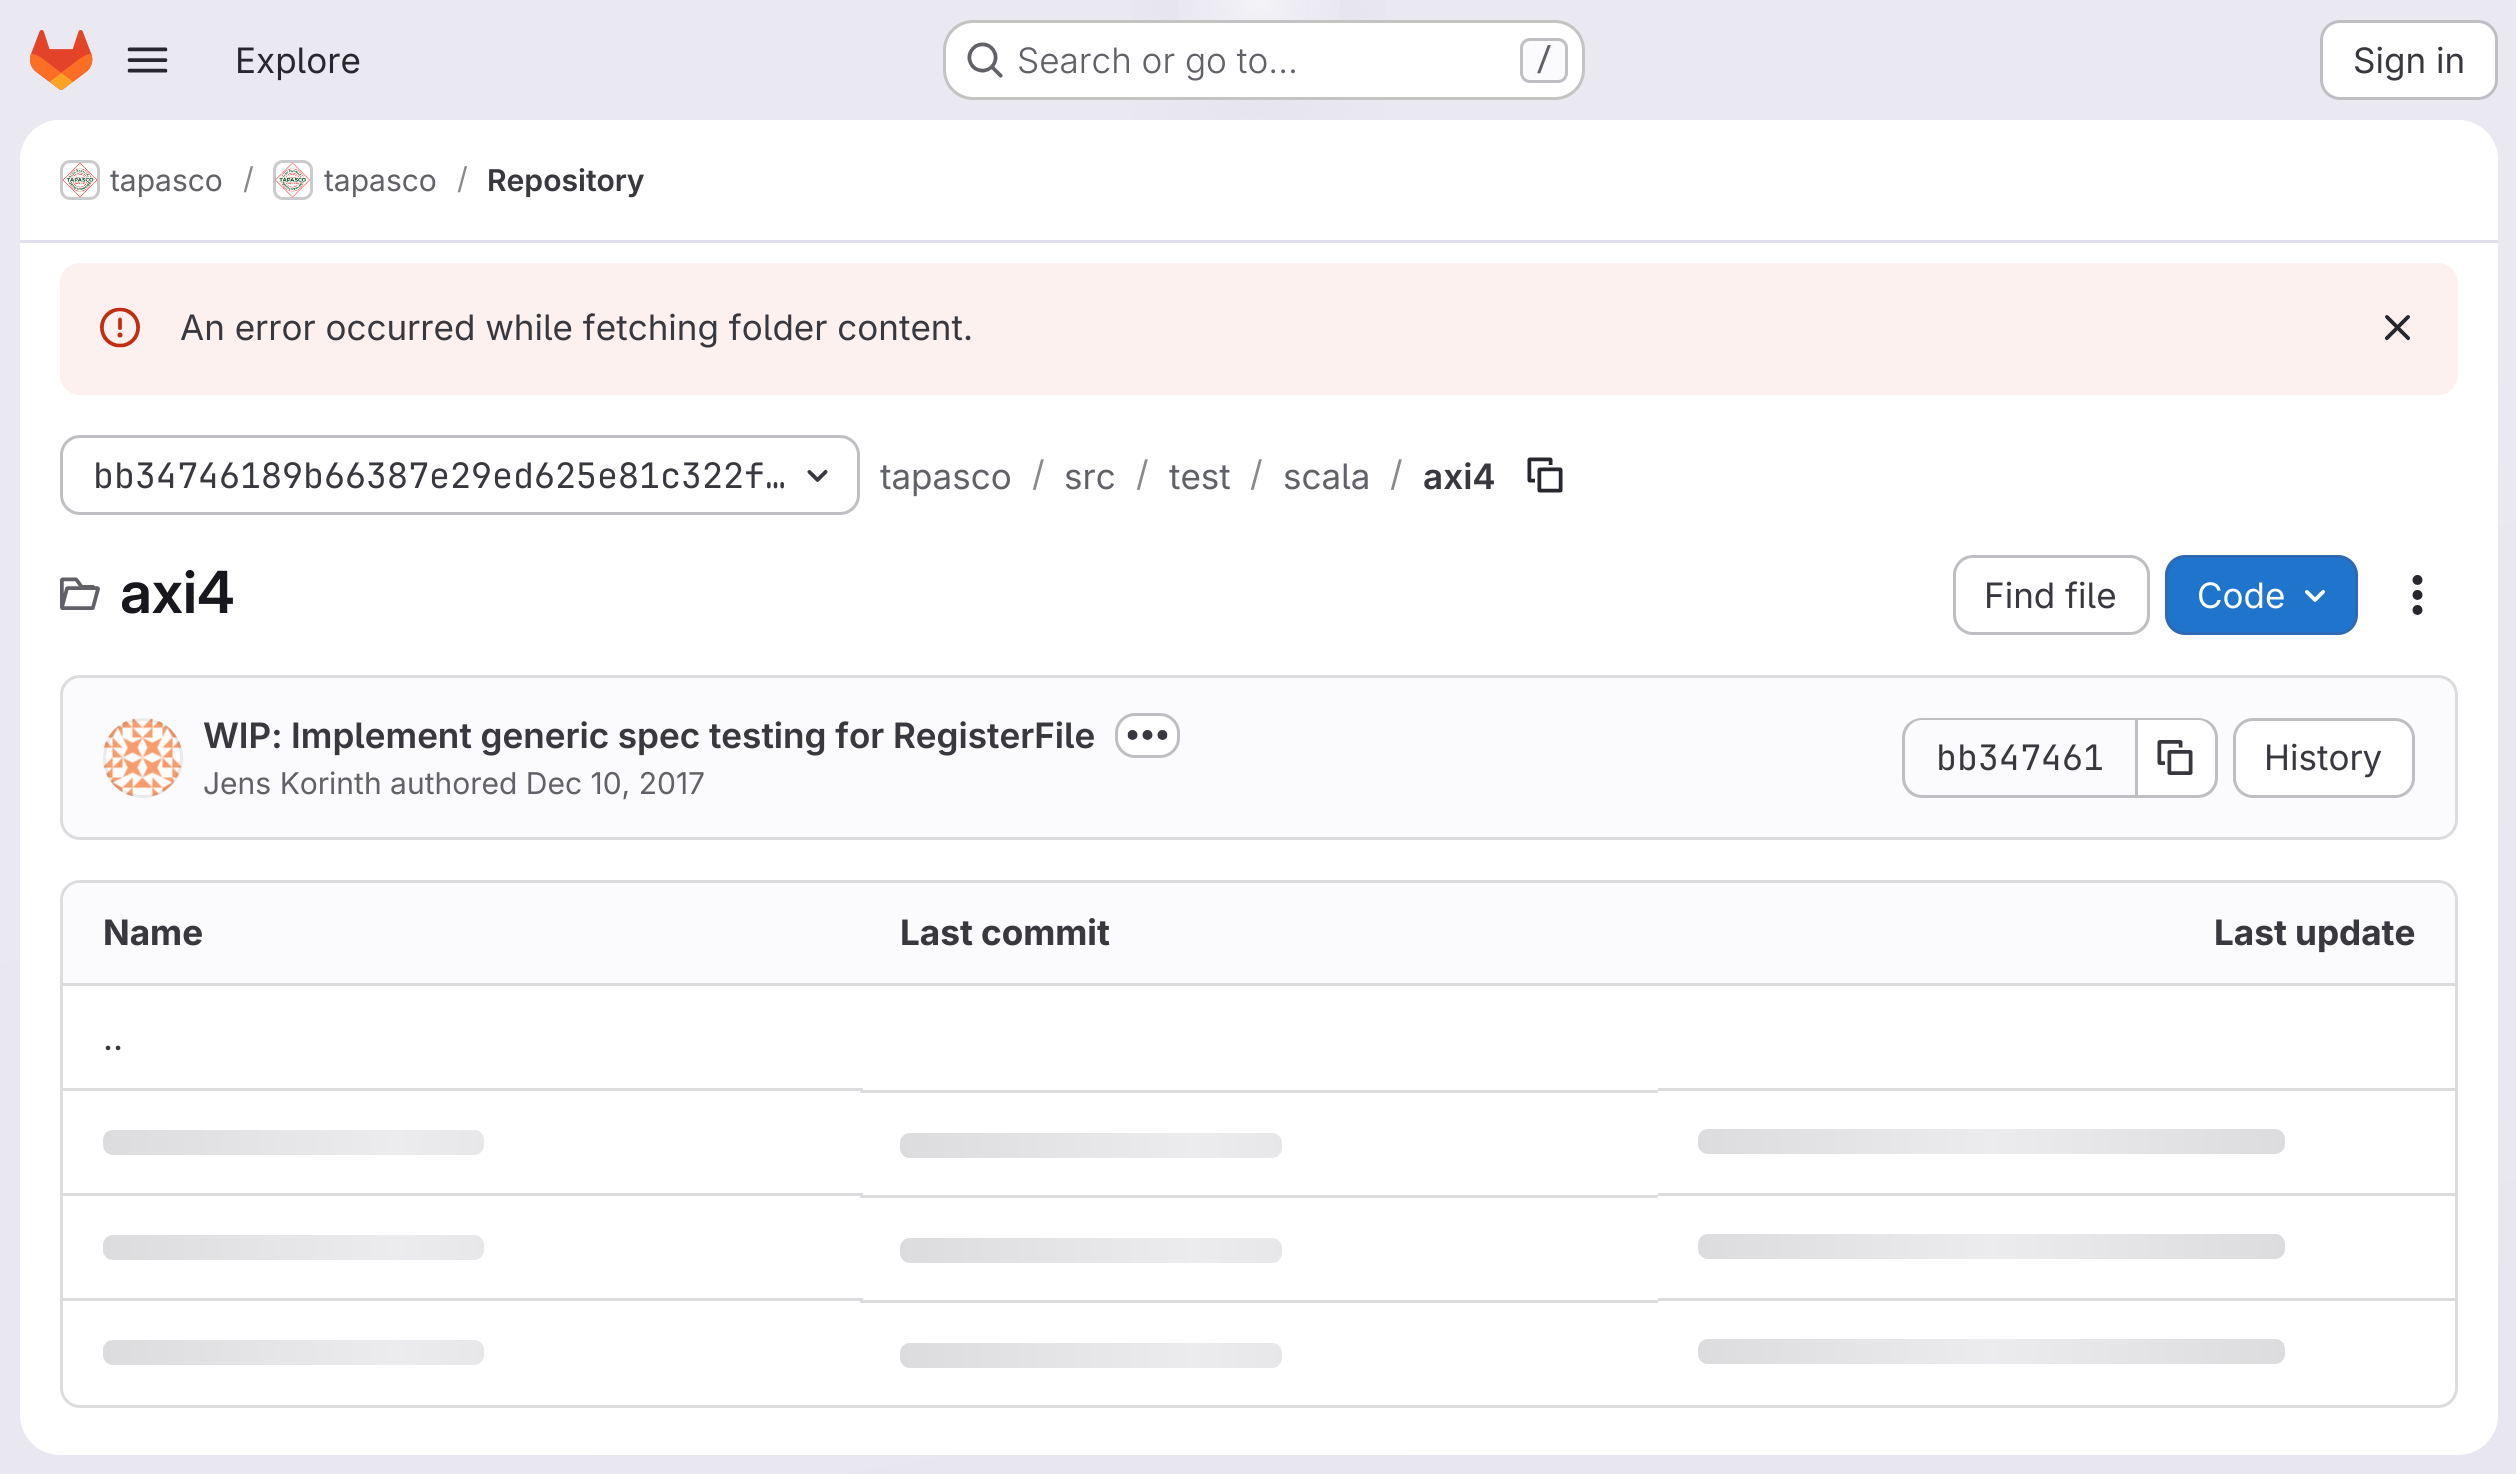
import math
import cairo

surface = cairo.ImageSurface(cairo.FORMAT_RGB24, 2516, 1474)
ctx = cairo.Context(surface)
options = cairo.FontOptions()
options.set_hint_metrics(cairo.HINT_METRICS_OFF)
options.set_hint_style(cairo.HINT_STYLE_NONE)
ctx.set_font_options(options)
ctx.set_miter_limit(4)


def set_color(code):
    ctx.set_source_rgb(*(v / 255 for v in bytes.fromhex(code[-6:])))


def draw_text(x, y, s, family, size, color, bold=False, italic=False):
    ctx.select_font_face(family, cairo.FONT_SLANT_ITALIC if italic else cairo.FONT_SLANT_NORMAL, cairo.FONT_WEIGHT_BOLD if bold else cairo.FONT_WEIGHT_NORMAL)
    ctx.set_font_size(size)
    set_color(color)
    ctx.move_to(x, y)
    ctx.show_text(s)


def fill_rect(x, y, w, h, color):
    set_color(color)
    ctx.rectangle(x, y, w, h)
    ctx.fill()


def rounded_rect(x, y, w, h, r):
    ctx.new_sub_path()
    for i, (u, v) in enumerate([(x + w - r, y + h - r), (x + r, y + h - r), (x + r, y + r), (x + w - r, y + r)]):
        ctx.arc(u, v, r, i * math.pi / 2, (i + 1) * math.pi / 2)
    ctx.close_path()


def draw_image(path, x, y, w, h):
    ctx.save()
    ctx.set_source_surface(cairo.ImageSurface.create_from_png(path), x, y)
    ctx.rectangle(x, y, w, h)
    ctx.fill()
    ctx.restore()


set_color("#ffffff")
ctx.paint()
gradient = cairo.LinearGradient(1423, 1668, 1095, -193)
gradient.add_color_stop_rgba(0, 0.91, 0.902, 0.941, 1)
gradient.add_color_stop_rgba(0.7, 0.918, 0.914, 0.949, 1)
ctx.set_source(gradient)
ctx.rectangle(0, 0, 2516, 1474)
ctx.fill()
gradient = cairo.RadialGradient(0, 0, 0, 0, 0, 1)
gradient.set_matrix(cairo.Matrix(1 / 1259, 0, 0, 1 / 1475, -1 * 1259 / 1259, -1 * 0 / 1475))
gradient.add_color_stop_rgba(0, 0.894, 0.886, 0.929, 1)
gradient.add_color_stop_rgba(0.14, 0.894, 0.886, 0.929, 0)
ctx.set_source(gradient)
ctx.rectangle(1132, 0, 254, 120)
ctx.fill()
gradient = cairo.RadialGradient(0, 0, 0, 0, 0, 1)
gradient.set_matrix(cairo.Matrix(1 / 1259, 0, 0, 1 / 1475, -1 * 1259 / 1259, -1 * 0 / 1475))
gradient.add_color_stop_rgba(0, 0.894, 0.886, 0.925, 1)
gradient.add_color_stop_rgba(0.1, 0.894, 0.886, 0.925, 0)
ctx.set_source(gradient)
ctx.rectangle(1207, 0, 104, 50)
ctx.fill()
gradient = cairo.RadialGradient(1259, 0, 0, 1259, 0, 1939)
gradient.add_color_stop_rgba(0, 1, 1, 1, 0.6)
gradient.add_color_stop_rgba(0.05, 1, 1, 1, 0)
ctx.set_source(gradient)
ctx.rectangle(1178, 0, 162, 20)
ctx.fill()
draw_image("assets/img1.png", 30, 30, 63, 60)
draw_image("assets/img2.png", 127, 47, 41, 26)
draw_text(235, 73, "Explore", "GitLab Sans", 35, "#28272d")
set_color("#ffffff")
rounded_rect(943, 20, 642, 80, 30)
ctx.fill()
rounded_rect(944.5, 21.5, 639, 77, 28.5)
ctx.set_source_rgba(0.02, 0.02, 0.024, 0.24)
ctx.set_line_width(3)
ctx.stroke()
draw_image("assets/img3.png", 967, 42, 36, 36)
draw_text(1017, 73, "Search or go to…", "GitLab Sans Light", 35, "#626168")
set_color("#fbfafd")
rounded_rect(1521.5, 39.5, 45, 42, 8.5)
ctx.fill_preserve()
set_color("#bfbfc3")
ctx.stroke()
draw_text(1535, 70, "/", "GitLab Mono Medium", 30, "#626168")
set_color("#ffffff")
rounded_rect(2321.5, 21.5, 175, 77, 18.5)
ctx.fill_preserve()
set_color("#bfbfc3")
ctx.stroke()
draw_text(2353, 73, "Sign in", "GitLab Sans", 35, "#3a383f")
set_color("#ffffff")
rounded_rect(20, 120, 2478, 1335, 40)
ctx.fill()
ctx.new_path()
ctx.move_to(60, 120)
ctx.line_to(2458, 120)
ctx.curve_to(2480, 120, 2498, 138, 2498, 160)
ctx.line_to(2498, 243)
ctx.line_to(20, 243)
ctx.line_to(20, 160)
ctx.curve_to(20, 138, 38, 120, 60, 120)
ctx.close_path()
ctx.fill()
fill_rect(20, 240, 2478, 3, "#e1dfec")
rounded_rect(61.5, 161.5, 37, 37, 8.5)
set_color("#dcdcde")
ctx.stroke()
draw_image("assets/img4.png", 62, 162, 36, 36)
rounded_rect(61.5, 161.5, 37, 37, 8.5)
ctx.set_source_rgba(0.02, 0.02, 0.024, 0.08)
ctx.stroke()
draw_text(110, 191, "tapasco", "GitLab Sans", 30, "#626168")
draw_text(243, 189, "/", "GitLab Sans", 30, "#89888d")
rounded_rect(274.5, 161.5, 37, 37, 8.5)
set_color("#dcdcde")
ctx.stroke()
draw_image("assets/img5.png", 275, 162, 35, 36)
rounded_rect(274.5, 161.5, 37, 37, 8.5)
ctx.set_source_rgba(0.02, 0.02, 0.024, 0.08)
ctx.stroke()
draw_text(324, 191, "tapasco", "GitLab Sans", 30, "#626168")
draw_text(457, 189, "/", "GitLab Sans", 30, "#89888d")
draw_text(487, 191, "Repository", "GitLab Sans SemiBold", 30, "#3a383f")
set_color("#fcf1ef")
rounded_rect(60, 263, 2398, 132, 20)
ctx.fill()
draw_image("assets/img6.png", 100, 307, 40, 41)
draw_text(180, 340, "An error occurred while fetching folder content.", "GitLab Sans", 35, "#3a383f")
draw_image("assets/img7.png", 2384, 315, 26, 26)
rounded_rect(61.5, 436.5, 797, 77, 18.5)
set_color("#bfbfc3")
ctx.stroke()
draw_text(93, 488, "bb34746189b66387e29ed625e81c322f…", "GitLab Mono", 35, "#3a383f")
draw_image("assets/img8.png", 807, 469, 21, 13)
draw_text(880, 489, "tapasco", "GitLab Sans", 35, "#626168")
draw_text(1032, 486, "/", "GitLab Sans", 35, "#89888d")
draw_text(1064, 489, "src", "GitLab Sans", 35, "#626168")
draw_text(1136, 486, "/", "GitLab Sans", 35, "#89888d")
draw_text(1169, 489, "test", "GitLab Sans", 35, "#626168")
draw_text(1250, 486, "/", "GitLab Sans", 35, "#89888d")
draw_text(1283, 489, "scala", "GitLab Sans", 35, "#626168")
draw_text(1390, 486, "/", "GitLab Sans", 35, "#89888d")
draw_text(1423, 489, "axi4", "GitLab Sans SemiBold", 35, "#3a383f")
draw_image("assets/img9.png", 1527, 457, 36, 36)
draw_image("assets/img10.png", 60, 577, 40, 33)
draw_text(120, 613, "axi4", "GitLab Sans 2 SemiBold", 58, "#18171d")
rounded_rect(1954.5, 556.5, 194, 77, 18.5)
set_color("#bfbfc3")
ctx.stroke()
draw_text(1984, 608, "Find file", "GitLab Sans", 35, "#3a383f")
set_color("#1f75cb")
rounded_rect(2166.5, 556.5, 190, 77, 18.5)
ctx.fill_preserve()
set_color("#2f68b4")
ctx.stroke()
draw_text(2197, 608, "Code", "GitLab Sans", 35, "#ffffff")
draw_image("assets/img11.png", 2305, 589, 21, 13)
draw_image("assets/img12.png", 2412, 575, 11, 40)
set_color("#fbfafd")
rounded_rect(61.5, 676.5, 2395, 162, 18.5)
ctx.fill_preserve()
set_color("#dcdcde")
ctx.stroke()
draw_image("assets/img13.png", 103, 718, 79, 79)
ctx.arc(143, 758, 38.5, 0, 2 * math.pi)
ctx.set_source_rgba(0.02, 0.02, 0.024, 0.08)
ctx.stroke()
draw_text(203, 748, "WIP: Implement generic spec testing for RegisterFile", "GitLab Sans SemiBold", 35, "#3a383f")
set_color("#ffffff")
rounded_rect(1116.5, 714.5, 62, 42, 18.5)
ctx.fill_preserve()
set_color("#bfbfc3")
ctx.stroke()
draw_image("assets/img14.png", 1127, 730, 41, 10)
draw_text(203, 794, "Jens Korinth authored Dec 10, 2017", "GitLab Sans", 30, "#626168")
set_color("#bfbfc3")
ctx.set_fill_rule(cairo.FILL_RULE_EVEN_ODD)
ctx.new_path()
ctx.move_to(1922, 718)
ctx.line_to(2135, 718)
ctx.line_to(2135, 798)
ctx.line_to(1922, 798)
ctx.curve_to(1911, 798, 1902, 789, 1902, 778)
ctx.line_to(1902, 738)
ctx.curve_to(1902, 726, 1911, 718, 1922, 718)
ctx.close_path()
ctx.move_to(1922, 720)
ctx.line_to(2135, 720)
ctx.line_to(2135, 795)
ctx.line_to(1922, 795)
ctx.curve_to(1913, 795, 1905, 787, 1905, 778)
ctx.line_to(1905, 738)
ctx.curve_to(1905, 728, 1913, 720, 1922, 720)
ctx.close_path()
ctx.fill()
draw_text(1936, 770, "bb347461", "GitLab Mono", 35, "#3a383f")
set_color("#ffffff")
ctx.new_path()
ctx.move_to(2138, 720)
ctx.line_to(2197, 720)
ctx.curve_to(2207, 720, 2215, 728, 2215, 738)
ctx.line_to(2215, 777)
ctx.curve_to(2215, 787, 2207, 795, 2197, 795)
ctx.line_to(2138, 795)
ctx.close_path()
ctx.fill()
set_color("#bfbfc3")
ctx.new_path()
ctx.move_to(2138, 718)
ctx.line_to(2198, 718)
ctx.curve_to(2209, 718, 2218, 726, 2218, 738)
ctx.line_to(2218, 778)
ctx.curve_to(2218, 789, 2209, 798, 2198, 798)
ctx.line_to(2138, 798)
ctx.close_path()
ctx.move_to(2138, 720)
ctx.line_to(2198, 720)
ctx.curve_to(2207, 720, 2215, 728, 2215, 738)
ctx.line_to(2215, 778)
ctx.curve_to(2215, 787, 2207, 795, 2198, 795)
ctx.line_to(2138, 795)
ctx.close_path()
ctx.fill()
fill_rect(2135, 718, 3, 80, "#bfbfc3")
draw_image("assets/img15.png", 2157, 740, 36, 35)
set_color("#ffffff")
rounded_rect(2234.5, 719.5, 179, 77, 18.5)
ctx.fill_preserve()
set_color("#bfbfc3")
ctx.stroke()
draw_text(2264, 770, "History", "GitLab Sans", 35, "#3a383f")
rounded_rect(61.5, 881.5, 2395, 525, 18.5)
set_color("#dcdcde")
ctx.stroke()
set_color("#fbfafd")
ctx.new_path()
ctx.move_to(81, 883)
ctx.line_to(860, 883)
ctx.line_to(860, 985)
ctx.line_to(63, 985)
ctx.line_to(63, 901)
ctx.curve_to(63, 891, 71, 883, 81, 883)
ctx.close_path()
ctx.fill()
draw_text(103, 945, "Name", "GitLab Sans", 35, "#3a383f", bold=True)
fill_rect(860, 883, 798, 100, "#fbfafd")
draw_text(900, 945, "Last commit", "GitLab Sans", 35, "#3a383f", bold=True)
set_color("#fbfafd")
ctx.new_path()
ctx.move_to(1658, 883)
ctx.line_to(2437, 883)
ctx.curve_to(2447, 883, 2455, 891, 2455, 901)
ctx.line_to(2455, 985)
ctx.line_to(1658, 985)
ctx.close_path()
ctx.fill()
draw_text(2214, 945, "Last update", "GitLab Sans", 35, "#3a383f", bold=True)
fill_rect(63, 983, 2392, 3, "#dcdcde")
draw_text(103, 1050, "..", "GitLab Sans", 35, "#3a383f")
fill_rect(860, 1090, 798, 3, "#dcdcde")
fill_rect(63, 1088, 800, 3, "#dcdcde")
gradient = cairo.LinearGradient(103, 1130, 690, 1130)
gradient.add_color_stop_rgba(0, 0.863, 0.863, 0.871, 1)
gradient.add_color_stop_rgba(0.5, 0.925, 0.925, 0.937, 1)
gradient.add_color_stop_rgba(1, 0.863, 0.863, 0.871, 1)
ctx.set_source(gradient)
rounded_rect(103, 1130, 381, 25, 10)
ctx.fill()
gradient = cairo.LinearGradient(900, 1133, 1488, 1133)
gradient.add_color_stop_rgba(0, 0.863, 0.863, 0.871, 1)
gradient.add_color_stop_rgba(0.5, 0.925, 0.925, 0.937, 1)
gradient.add_color_stop_rgba(1, 0.863, 0.863, 0.871, 1)
ctx.set_source(gradient)
rounded_rect(900, 1133, 382, 25, 10)
ctx.fill()
fill_rect(1658, 1088, 797, 3, "#dcdcde")
gradient = cairo.LinearGradient(1698, 1129, 2285, 1129)
gradient.add_color_stop_rgba(0, 0.863, 0.863, 0.871, 1)
gradient.add_color_stop_rgba(0.5, 0.925, 0.925, 0.937, 1)
gradient.add_color_stop_rgba(1, 0.863, 0.863, 0.871, 1)
ctx.set_source(gradient)
rounded_rect(1698, 1129, 587, 25, 10)
ctx.fill()
fill_rect(860, 1195, 798, 3, "#dcdcde")
fill_rect(63, 1193, 800, 3, "#dcdcde")
gradient = cairo.LinearGradient(103, 1235, 690, 1235)
gradient.add_color_stop_rgba(0, 0.863, 0.863, 0.871, 1)
gradient.add_color_stop_rgba(0.5, 0.925, 0.925, 0.937, 1)
gradient.add_color_stop_rgba(1, 0.863, 0.863, 0.871, 1)
ctx.set_source(gradient)
rounded_rect(103, 1235, 381, 25, 10)
ctx.fill()
gradient = cairo.LinearGradient(900, 1238, 1488, 1238)
gradient.add_color_stop_rgba(0, 0.863, 0.863, 0.871, 1)
gradient.add_color_stop_rgba(0.5, 0.925, 0.925, 0.937, 1)
gradient.add_color_stop_rgba(1, 0.863, 0.863, 0.871, 1)
ctx.set_source(gradient)
rounded_rect(900, 1238, 382, 25, 10)
ctx.fill()
fill_rect(1658, 1193, 797, 3, "#dcdcde")
gradient = cairo.LinearGradient(1698, 1234, 2285, 1234)
gradient.add_color_stop_rgba(0, 0.863, 0.863, 0.871, 1)
gradient.add_color_stop_rgba(0.5, 0.925, 0.925, 0.937, 1)
gradient.add_color_stop_rgba(1, 0.863, 0.863, 0.871, 1)
ctx.set_source(gradient)
rounded_rect(1698, 1234, 587, 25, 10)
ctx.fill()
fill_rect(860, 1300, 798, 3, "#dcdcde")
fill_rect(63, 1298, 800, 3, "#dcdcde")
gradient = cairo.LinearGradient(103, 1340, 690, 1340)
gradient.add_color_stop_rgba(0, 0.863, 0.863, 0.871, 1)
gradient.add_color_stop_rgba(0.5, 0.925, 0.925, 0.937, 1)
gradient.add_color_stop_rgba(1, 0.863, 0.863, 0.871, 1)
ctx.set_source(gradient)
rounded_rect(103, 1340, 381, 25, 10)
ctx.fill()
gradient = cairo.LinearGradient(900, 1343, 1488, 1343)
gradient.add_color_stop_rgba(0, 0.863, 0.863, 0.871, 1)
gradient.add_color_stop_rgba(0.5, 0.925, 0.925, 0.937, 1)
gradient.add_color_stop_rgba(1, 0.863, 0.863, 0.871, 1)
ctx.set_source(gradient)
rounded_rect(900, 1343, 382, 25, 10)
ctx.fill()
fill_rect(1658, 1298, 797, 3, "#dcdcde")
gradient = cairo.LinearGradient(1698, 1339, 2285, 1339)
gradient.add_color_stop_rgba(0, 0.863, 0.863, 0.871, 1)
gradient.add_color_stop_rgba(0.5, 0.925, 0.925, 0.937, 1)
gradient.add_color_stop_rgba(1, 0.863, 0.863, 0.871, 1)
ctx.set_source(gradient)
rounded_rect(1698, 1339, 587, 25, 10)
ctx.fill()
surface.write_to_png("output.png")
